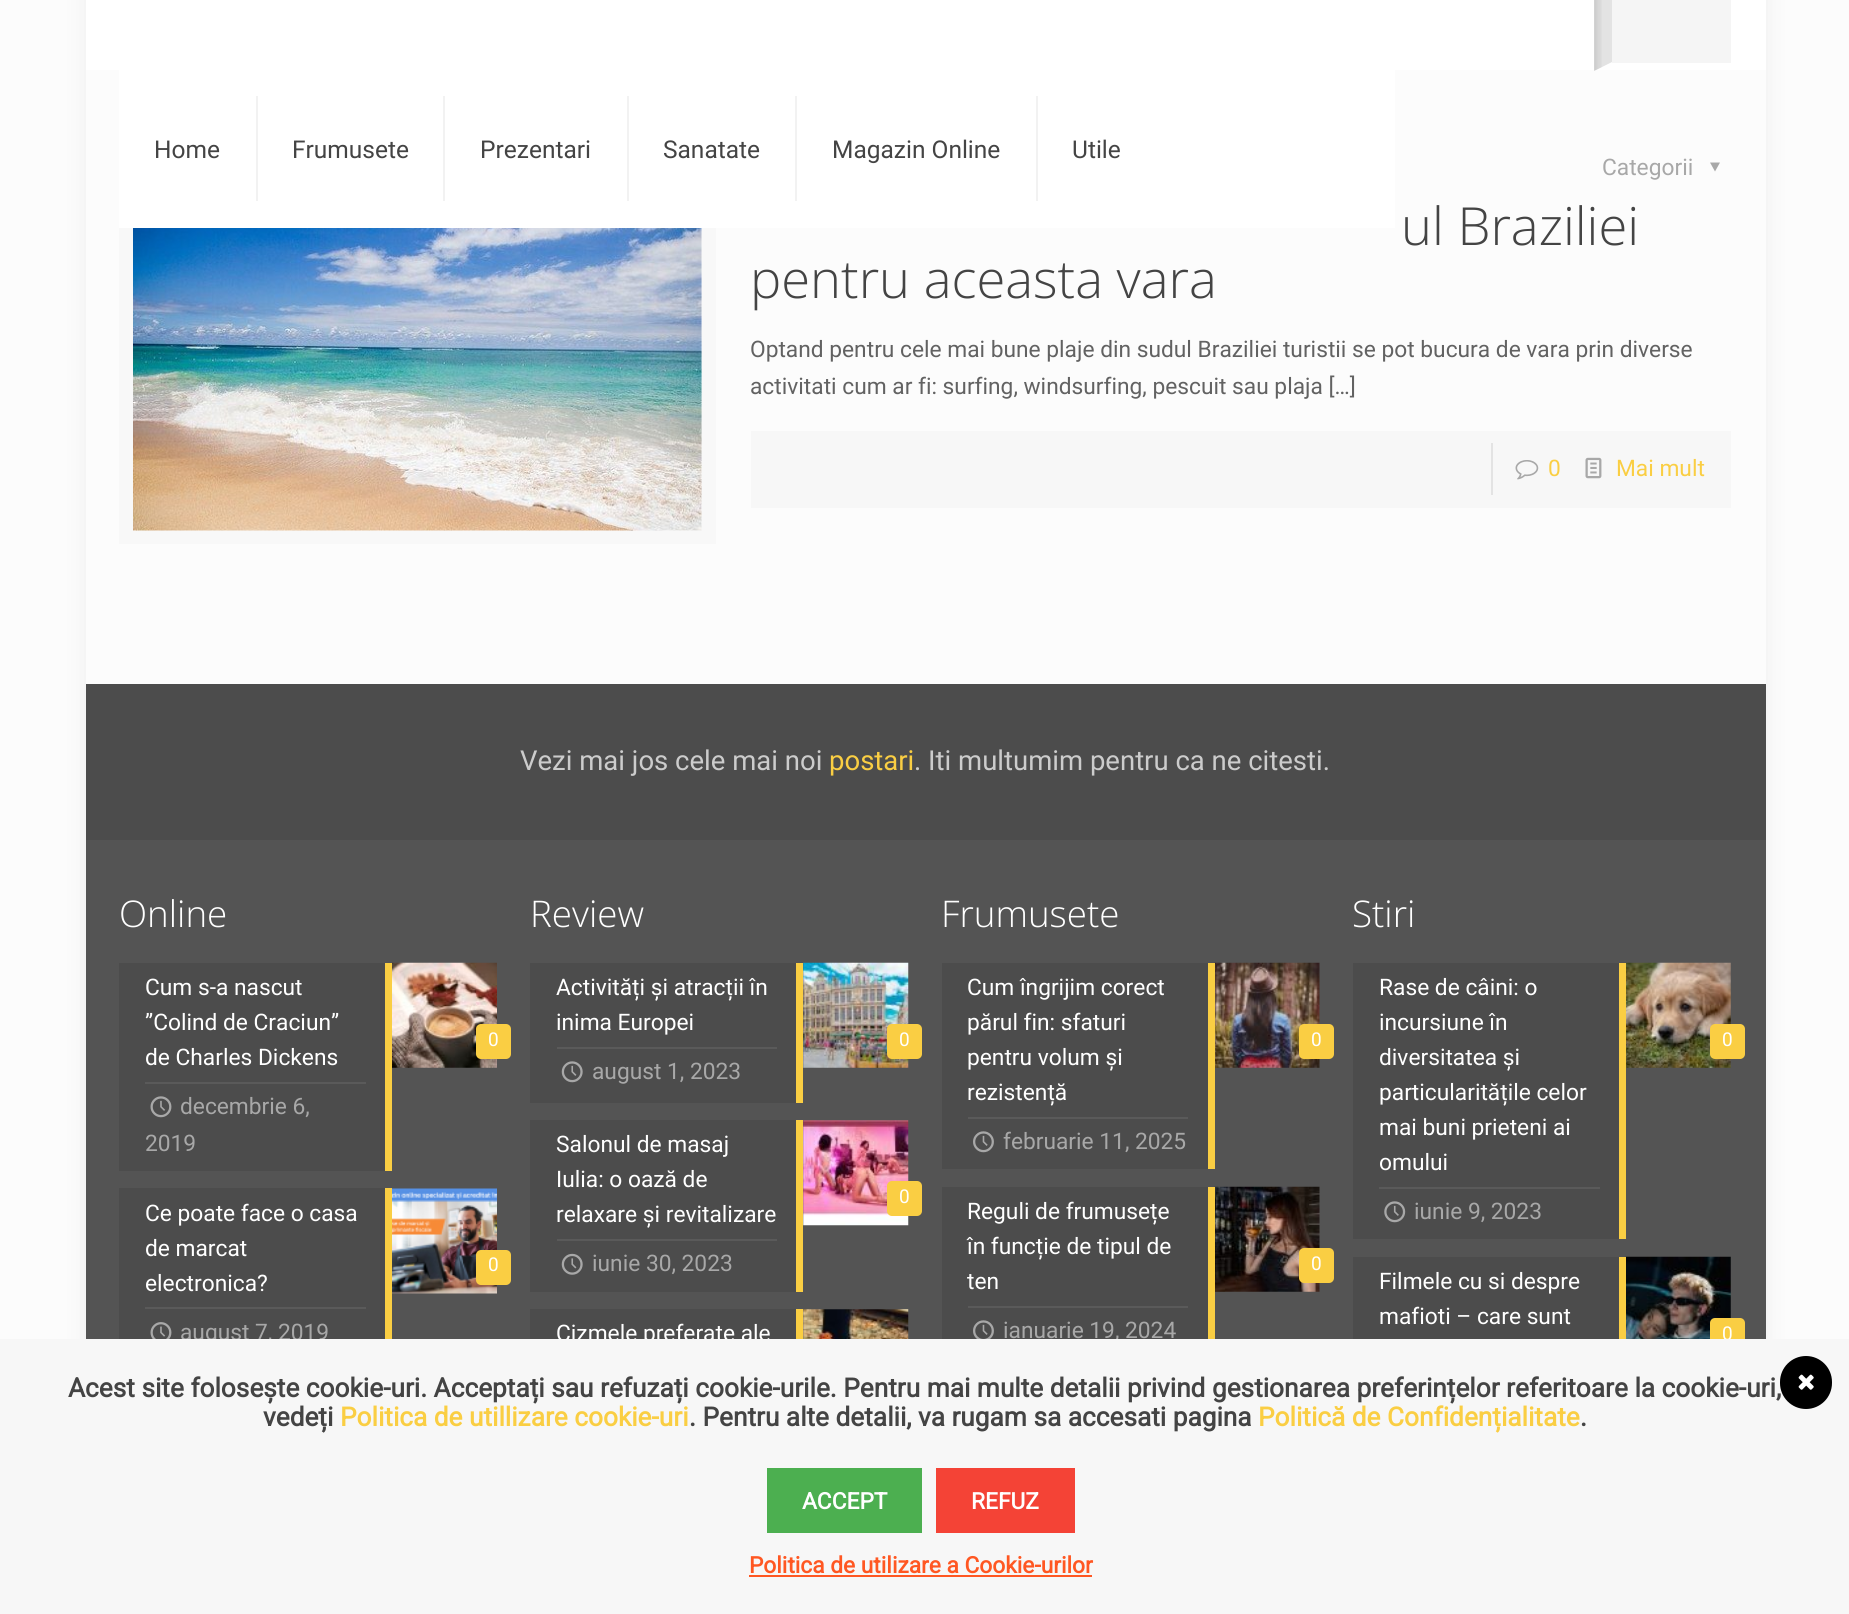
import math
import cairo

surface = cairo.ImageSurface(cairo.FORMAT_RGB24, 1849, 1614)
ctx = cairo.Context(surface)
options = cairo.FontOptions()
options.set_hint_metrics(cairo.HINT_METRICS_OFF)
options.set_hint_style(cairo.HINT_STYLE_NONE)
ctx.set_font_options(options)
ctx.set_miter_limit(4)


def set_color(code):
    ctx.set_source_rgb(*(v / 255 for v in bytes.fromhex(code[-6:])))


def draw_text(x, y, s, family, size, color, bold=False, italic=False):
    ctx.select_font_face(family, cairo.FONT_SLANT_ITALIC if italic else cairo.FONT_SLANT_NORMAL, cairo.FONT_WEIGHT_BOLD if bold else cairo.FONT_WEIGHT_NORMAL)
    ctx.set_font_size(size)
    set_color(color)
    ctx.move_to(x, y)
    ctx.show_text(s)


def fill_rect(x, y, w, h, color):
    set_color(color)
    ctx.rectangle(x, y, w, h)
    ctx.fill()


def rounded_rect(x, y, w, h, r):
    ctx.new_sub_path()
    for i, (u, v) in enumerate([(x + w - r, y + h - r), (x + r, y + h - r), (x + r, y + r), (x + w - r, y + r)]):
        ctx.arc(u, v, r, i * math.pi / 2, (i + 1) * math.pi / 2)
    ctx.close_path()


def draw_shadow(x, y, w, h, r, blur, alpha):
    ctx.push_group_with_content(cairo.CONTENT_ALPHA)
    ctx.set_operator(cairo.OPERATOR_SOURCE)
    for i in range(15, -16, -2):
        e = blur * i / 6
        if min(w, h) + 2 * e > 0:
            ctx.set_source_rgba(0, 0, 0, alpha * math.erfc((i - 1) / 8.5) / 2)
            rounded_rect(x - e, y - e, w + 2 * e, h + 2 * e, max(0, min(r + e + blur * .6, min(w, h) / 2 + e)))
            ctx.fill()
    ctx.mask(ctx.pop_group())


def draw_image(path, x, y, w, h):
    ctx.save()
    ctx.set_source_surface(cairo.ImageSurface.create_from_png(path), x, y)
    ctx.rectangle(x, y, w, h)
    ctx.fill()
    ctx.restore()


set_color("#fcfcfc")
ctx.paint()
set_color("#000000")
draw_shadow(86, -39, 1680, 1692, 0, 13, 0.06)
fill_rect(86, 70, 1680, 614, "#fcfcfc")
fill_rect(86, 0, 1680, 70, "#ffffff")
fill_rect(1612, 0, 119, 63, "#f5f5f5")
set_color("#e3e3e3")
ctx.new_path()
ctx.move_to(1594, -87)
ctx.line_to(1612, -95)
ctx.line_to(1612, 62)
ctx.line_to(1594, 71)
ctx.close_path()
ctx.fill()
draw_image("assets/img1.png", 1594, 0, 8, 71)
ctx.rectangle(126, 130, 583, 407)
set_color("#f8f8f8")
ctx.set_line_width(14)
ctx.stroke()
fill_rect(119, 70, 1276, 158, "#ffffff")
fill_rect(256, 96, 2, 105, "#f2f2f2")
draw_text(154, 158, "Home", "Roboto", 24.5, "#444444")
fill_rect(443, 96, 2, 105, "#f2f2f2")
draw_text(292, 158, "Frumusete", "Roboto", 24.5, "#444444")
fill_rect(627, 96, 2, 105, "#f2f2f2")
draw_text(480, 158, "Prezentari", "Roboto", 24.5, "#444444")
fill_rect(795, 96, 2, 105, "#f2f2f2")
draw_text(663, 158, "Sanatate", "Roboto", 24.5, "#444444")
fill_rect(1036, 96, 2, 105, "#f2f2f2")
draw_text(832, 158, "Magazin Online", "Roboto", 24.5, "#444444")
draw_text(1072, 158, "Utile", "Roboto", 24.5, "#444444")
draw_image("assets/img2.png", 133, 228, 569, 303)
draw_text(1602, 175, "Categorii", "Roboto", 22.75, "#a8a8a8")
ctx.new_path()
ctx.move_to(1720, 162.5)
ctx.line_to(1715, 171.5)
ctx.line_to(1710, 162.5)
ctx.close_path()
ctx.fill()
draw_text(1401, 245, "ul Braziliei", "Open Sans Light", 52.5, "#444444")
draw_text(750, 298, "pentru aceasta vara", "Open Sans Light", 52.5, "#444444")
draw_text(750, 357, "Optand pentru cele mai bune plaje din sudul Braziliei turistii se pot bucura de vara prin diverse", "Roboto", 22.75, "#626262")
draw_text(750, 394, "activitati cum ar fi: surfing, windsurfing, pescuit sau plaja […]", "Roboto", 22.75, "#626262")
fill_rect(751, 431, 980, 77, "#f7f7f7")
fill_rect(1491, 443, 2, 52, "#e3e3e3")
draw_image("assets/img3.png", 1515, 460, 24, 20)
draw_text(1548, 476, "0", "Roboto", 22.75, "#face43")
draw_image("assets/img4.png", 1585, 457, 17, 22)
draw_text(1616, 476, "Mai mult", "Roboto", 22.75, "#face43")
fill_rect(86, 840, 1680, 499, "#545454")
fill_rect(86, 684, 1680, 156, "#4c4c4c")
draw_text(520, 770, "Vezi mai jos cele mai noi", "Roboto", 27.5, "#cccccc")
draw_text(829, 770, "postari", "Roboto", 27.5, "#face43")
draw_text(914, 770, ". Iti multumim pentru ca ne citesti.", "Roboto", 27.5, "#cccccc")
draw_text(119, 927, "Online", "Open Sans Light", 36.75, "#ffffff")
fill_rect(119, 963, 266, 208, "#4c4c4c")
fill_rect(145, 1082, 221, 2, "#5a5a5a")
draw_text(145, 995, "Cum s-a nascut", "Roboto", 22.75, "#ffffff")
draw_text(145, 1030, "”Colind de Craciun”", "Roboto", 22.75, "#ffffff")
draw_text(145, 1065, "de Charles Dickens", "Roboto", 22.75, "#ffffff")
fill_rect(385, 963, 7, 208, "#face43")
draw_image("assets/img5.png", 150, 1096, 22, 22)
draw_text(180, 1114, "decembrie 6,", "Roboto", 22.75, "#a8a8a8")
draw_text(145, 1151, "2019", "Roboto", 22.75, "#a8a8a8")
draw_image("assets/img6.png", 392, 962, 105, 106)
set_color("#face43")
rounded_rect(476, 1024, 35, 35, 5)
ctx.fill()
draw_text(488, 1046, "0", "Roboto", 19, "#ffffff")
fill_rect(119, 1188, 266, 151, "#4c4c4c")
fill_rect(145, 1307, 221, 2, "#5a5a5a")
draw_text(145, 1221, "Ce poate face o casa", "Roboto", 22.75, "#ffffff")
draw_text(145, 1256, "de marcat", "Roboto", 22.75, "#ffffff")
draw_text(145, 1291, "electronica?", "Roboto", 22.75, "#ffffff")
fill_rect(385, 1188, 7, 151, "#face43")
draw_image("assets/img7.png", 150, 1322, 22, 17)
draw_text(180, 1340, "august 7, 2019", "Roboto", 22.75, "#a8a8a8")
draw_image("assets/img8.png", 392, 1188, 105, 106)
set_color("#face43")
rounded_rect(476, 1250, 35, 35, 5)
ctx.fill()
draw_text(488, 1271, "0", "Roboto", 19, "#ffffff")
draw_text(530, 927, "Review", "Open Sans Light", 36.75, "#ffffff")
fill_rect(530, 963, 266, 140, "#4c4c4c")
fill_rect(557, 1047, 220, 2, "#5a5a5a")
draw_text(556, 995, "Activități și atracții în", "Roboto", 22.75, "#ffffff")
draw_text(556, 1030, "inima Europei", "Roboto", 22.75, "#ffffff")
fill_rect(796, 963, 7, 140, "#face43")
draw_image("assets/img9.png", 561, 1061, 22, 22)
draw_text(592, 1079, "august 1, 2023", "Roboto", 22.75, "#a8a8a8")
draw_image("assets/img10.png", 803, 962, 106, 106)
set_color("#face43")
rounded_rect(887, 1024, 35, 35, 5)
ctx.fill()
draw_text(899, 1046, "0", "Roboto", 19, "#ffffff")
fill_rect(530, 1120, 266, 172, "#4c4c4c")
fill_rect(557, 1239, 220, 2, "#5a5a5a")
draw_text(556, 1152, "Salonul de masaj", "Roboto", 22.75, "#ffffff")
draw_text(556, 1187, "Iulia: o oază de", "Roboto", 22.75, "#ffffff")
draw_text(556, 1222, "relaxare și revitalizare", "Roboto", 22.75, "#ffffff")
fill_rect(796, 1120, 7, 172, "#face43")
draw_image("assets/img11.png", 561, 1253, 22, 22)
draw_text(592, 1271, "iunie 30, 2023", "Roboto", 22.75, "#a8a8a8")
draw_image("assets/img12.png", 803, 1120, 106, 106)
set_color("#face43")
rounded_rect(887, 1181, 35, 35, 5)
ctx.fill()
draw_text(899, 1203, "0", "Roboto", 19, "#ffffff")
fill_rect(530, 1309, 266, 30, "#4c4c4c")
draw_text(556, 1341, "Cizmele preferate ale", "Roboto", 22.75, "#ffffff")
fill_rect(796, 1309, 7, 30, "#face43")
draw_image("assets/img13.png", 803, 1309, 106, 30)
draw_text(941, 927, "Frumusete", "Open Sans Light", 36.75, "#ffffff")
ctx.set_source_rgba(0, 0, 0, 0.1)
ctx.rectangle(942, 963, 266, 206)
ctx.fill()
fill_rect(968, 1117, 220, 2, "#5a5a5a")
draw_text(967, 995, "Cum îngrijim corect", "Roboto", 22.75, "#ffffff")
draw_text(967, 1030, "părul fin: sfaturi", "Roboto", 22.75, "#ffffff")
draw_text(967, 1065, "pentru volum și", "Roboto", 22.75, "#ffffff")
draw_text(967, 1100, "rezistență", "Roboto", 22.75, "#ffffff")
draw_image("assets/img15.png", 1214, 962, 106, 106)
fill_rect(1208, 963, 7, 206, "#face43")
draw_image("assets/img14.png", 973, 1131, 21, 22)
draw_text(1003, 1149, "februarie 11, 2025", "Roboto", 22.75, "#a8a8a8")
set_color("#face43")
rounded_rect(1299, 1024, 35, 35, 5)
ctx.fill()
draw_text(1311, 1046, "0", "Roboto", 19, "#ffffff")
ctx.set_source_rgba(0, 0, 0, 0.1)
ctx.rectangle(942, 1187, 266, 152)
ctx.fill()
fill_rect(968, 1306, 220, 2, "#5a5a5a")
draw_text(967, 1219, "Reguli de frumusețe", "Roboto", 22.75, "#ffffff")
draw_text(967, 1254, "în funcție de tipul de", "Roboto", 22.75, "#ffffff")
draw_text(967, 1289, "ten", "Roboto", 22.75, "#ffffff")
draw_image("assets/img17.png", 1214, 1186, 106, 106)
fill_rect(1208, 1187, 7, 152, "#face43")
draw_image("assets/img16.png", 973, 1320, 21, 19)
draw_text(1003, 1338, "ianuarie 19, 2024", "Roboto", 22.75, "#a8a8a8")
set_color("#face43")
rounded_rect(1299, 1248, 35, 35, 5)
ctx.fill()
draw_text(1311, 1270, "0", "Roboto", 19, "#ffffff")
draw_text(1352, 927, "Stiri", "Open Sans Light", 36.75, "#ffffff")
ctx.set_source_rgba(0, 0, 0, 0.1)
ctx.rectangle(1353, 963, 266, 276)
ctx.fill()
fill_rect(1379, 1187, 221, 2, "#5a5a5a")
draw_text(1379, 995, "Rase de câini: o", "Roboto", 22.75, "#ffffff")
draw_text(1379, 1030, "incursiune în", "Roboto", 22.75, "#ffffff")
draw_text(1379, 1065, "diversitatea și", "Roboto", 22.75, "#ffffff")
draw_text(1379, 1100, "particularitățile celor", "Roboto", 22.75, "#ffffff")
draw_text(1379, 1135, "mai buni prieteni ai", "Roboto", 22.75, "#ffffff")
draw_text(1379, 1170, "omului", "Roboto", 22.75, "#ffffff")
draw_image("assets/img19.png", 1625, 962, 106, 106)
fill_rect(1619, 963, 7, 276, "#face43")
draw_image("assets/img18.png", 1384, 1201, 22, 22)
draw_text(1414, 1219, "iunie 9, 2023", "Roboto", 22.75, "#a8a8a8")
set_color("#face43")
rounded_rect(1710, 1024, 35, 35, 5)
ctx.fill()
draw_text(1722, 1046, "0", "Roboto", 19, "#ffffff")
ctx.set_source_rgba(0, 0, 0, 0.1)
ctx.rectangle(1353, 1257, 266, 82)
ctx.fill()
draw_text(1379, 1289, "Filmele cu si despre", "Roboto", 22.75, "#ffffff")
draw_text(1379, 1324, "mafioti – care sunt", "Roboto", 22.75, "#ffffff")
draw_image("assets/img20.png", 1625, 1256, 106, 83)
fill_rect(1619, 1257, 7, 82, "#face43")
rounded_rect(1710, 1318, 35, 35, 5)
ctx.fill()
draw_text(1722, 1340, "0", "Roboto", 19, "#ffffff")
fill_rect(0, 1339, 1849, 275, "#f7f7f7")
draw_text(68, 1397, "Acest site folosește cookie-uri. Acceptați sau refuzați cookie-urile. Pentru mai multe detalii privind gestionarea preferințelor referitoare la cookie-uri,", "Roboto", 26.25, "#444444", bold=True)
draw_text(263, 1426, "vedeți", "Roboto", 26.25, "#444444", bold=True)
draw_text(340, 1426, "Politica de utillizare cookie-uri", "Roboto", 26.25, "#face43", bold=True)
draw_text(689, 1426, ". Pentru alte detalii, va rugam sa accesati pagina", "Roboto", 26.25, "#444444", bold=True)
draw_text(1258, 1426, "Politică de Confidențialitate", "Roboto", 26.25, "#face43", bold=True)
draw_text(1580, 1426, ".", "Roboto", 26.25, "#444444", bold=True)
set_color("#000000")
rounded_rect(1780, 1356, 52, 53, 26)
ctx.fill()
draw_image("assets/img21.png", 1798, 1374, 16, 16)
fill_rect(767, 1468, 155, 65, "#4caf50")
draw_text(802, 1509, "ACCEPT", "Roboto", 22.75, "#ffffff", bold=True)
fill_rect(936, 1468, 139, 65, "#f44336")
draw_text(971, 1509, "REFUZ", "Roboto", 22.75, "#ffffff", bold=True)
draw_text(749, 1573, "Politica de utilizare a Cookie-urilor", "Roboto", 22.75, "#ff5722", bold=True)
fill_rect(749, 1575, 343, 2, "#ff5722")
surface.write_to_png("output.png")
